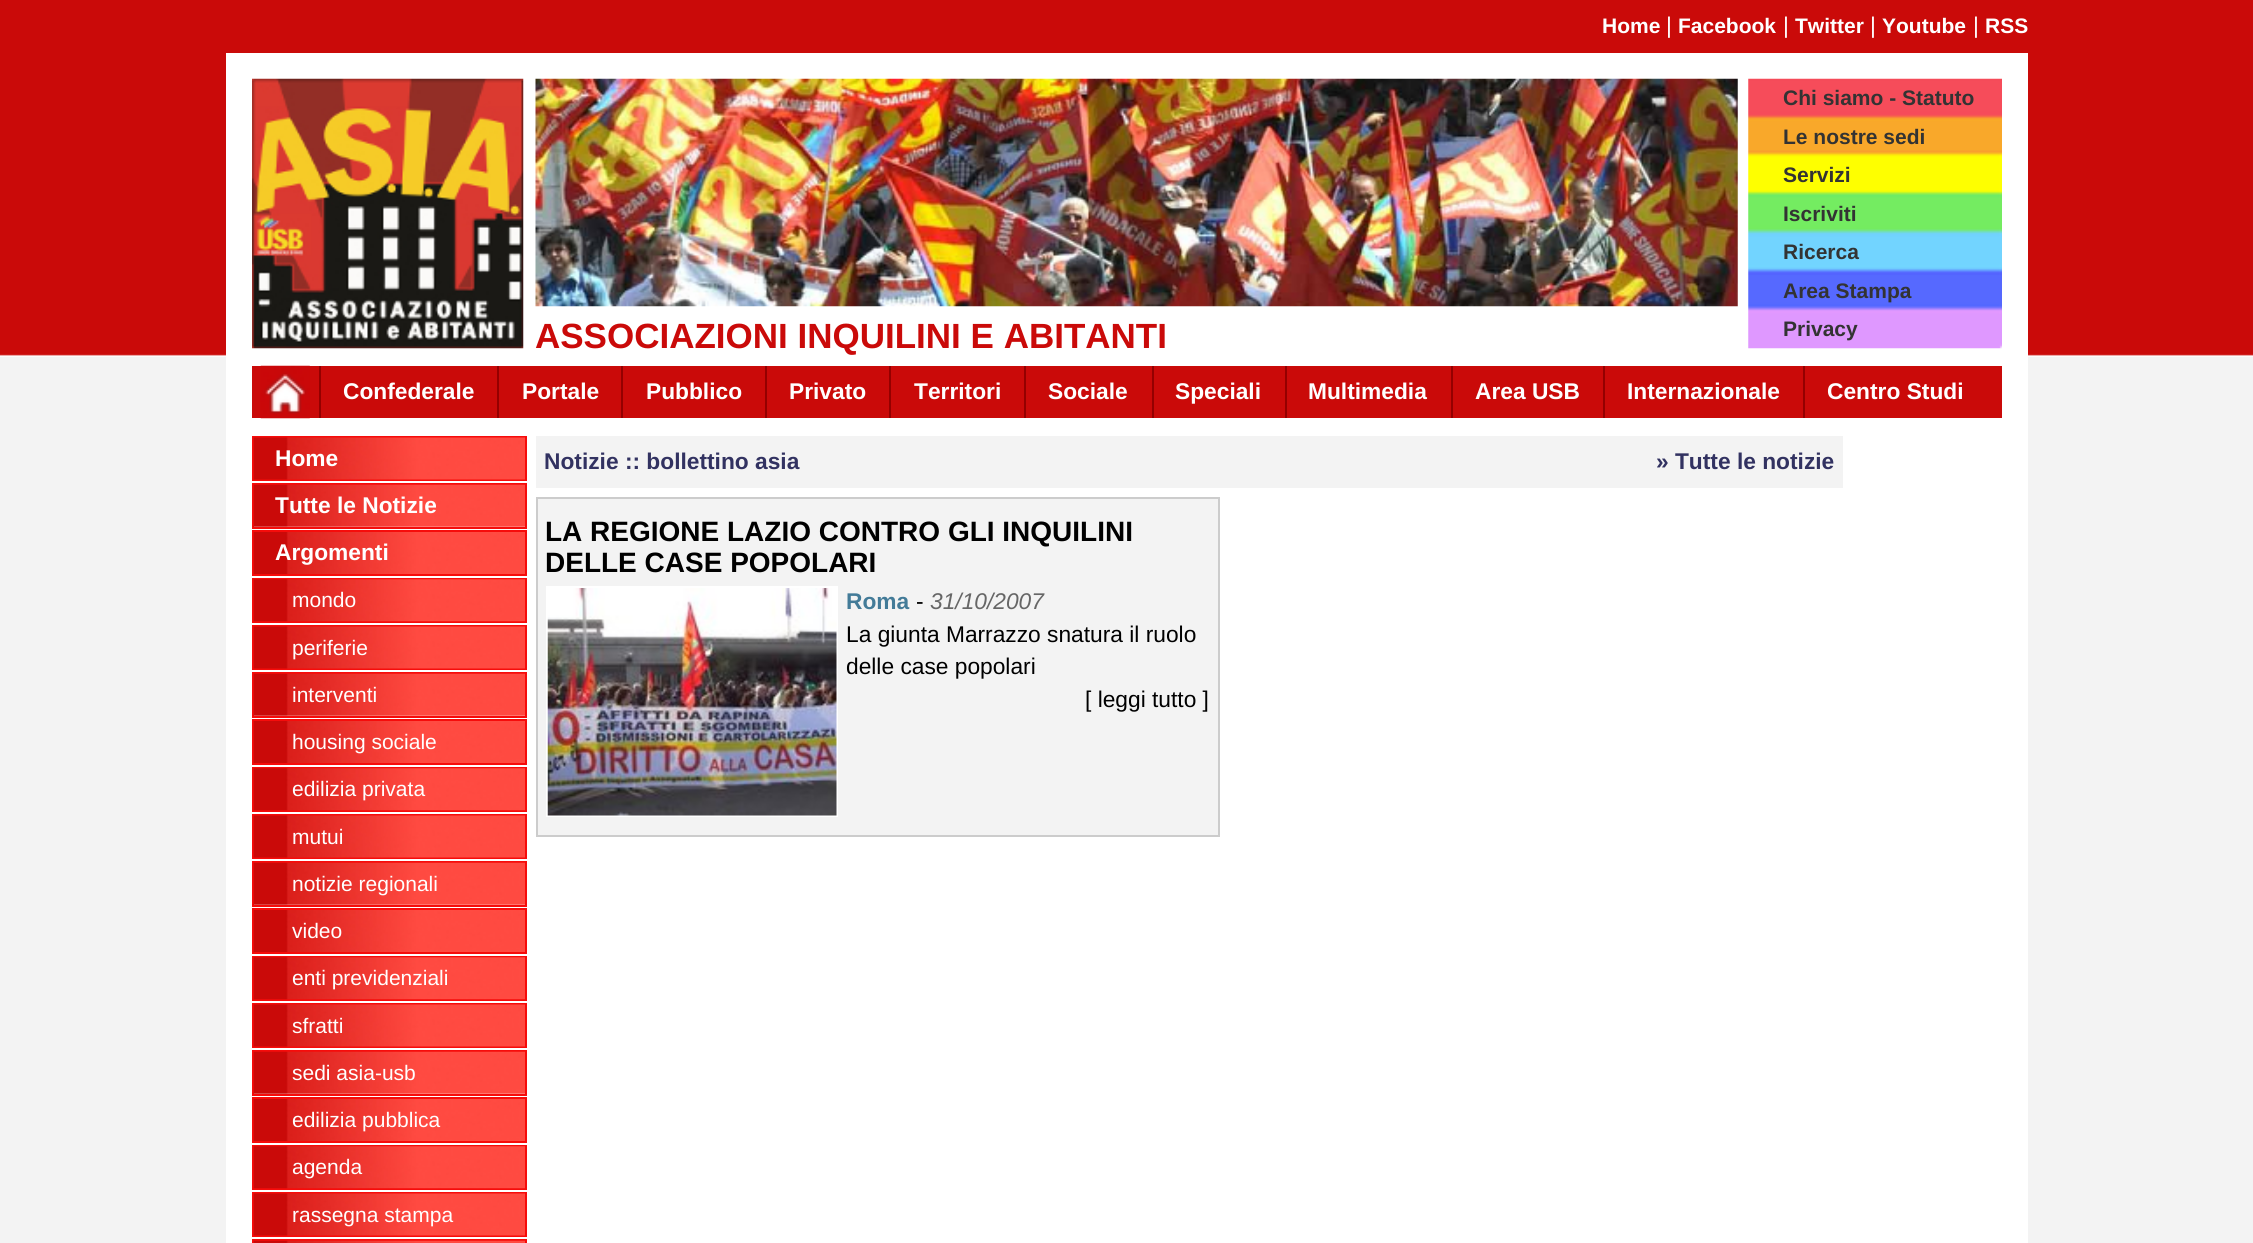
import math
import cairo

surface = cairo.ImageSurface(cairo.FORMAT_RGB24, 2253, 1243)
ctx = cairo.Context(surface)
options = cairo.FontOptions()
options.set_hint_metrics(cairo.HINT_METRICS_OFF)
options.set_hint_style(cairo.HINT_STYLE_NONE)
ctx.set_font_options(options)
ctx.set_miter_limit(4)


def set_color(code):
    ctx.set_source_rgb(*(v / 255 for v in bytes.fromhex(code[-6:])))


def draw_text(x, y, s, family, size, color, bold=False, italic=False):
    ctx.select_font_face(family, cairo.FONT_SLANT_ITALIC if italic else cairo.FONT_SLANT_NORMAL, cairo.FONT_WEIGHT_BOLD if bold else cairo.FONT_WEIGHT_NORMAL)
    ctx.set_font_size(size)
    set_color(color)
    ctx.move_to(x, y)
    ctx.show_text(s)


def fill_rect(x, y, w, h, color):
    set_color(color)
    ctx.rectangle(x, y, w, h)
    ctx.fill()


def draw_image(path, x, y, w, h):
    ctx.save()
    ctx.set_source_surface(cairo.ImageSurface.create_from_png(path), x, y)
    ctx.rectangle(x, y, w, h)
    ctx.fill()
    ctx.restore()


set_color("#f3f3f3")
ctx.paint()
draw_image("assets/img1.png", 0, 0, 2253, 357)
draw_text(1602, 33, "Home", "Liberation Sans", 21, "#ffffff", bold=True)
draw_text(1666, 33, "|", "Liberation Sans", 22.75, "#ffffff")
draw_text(1678, 33, "Facebook", "Liberation Sans", 21, "#ffffff", bold=True)
draw_text(1783, 33, "|", "Liberation Sans", 22.75, "#ffffff")
draw_text(1795, 33, "Twitter", "Liberation Sans", 21, "#ffffff", bold=True)
draw_text(1870, 33, "|", "Liberation Sans", 22.75, "#ffffff")
draw_text(1882, 33, "Youtube", "Liberation Sans", 21, "#ffffff", bold=True)
draw_text(1973, 33, "|", "Liberation Sans", 22.75, "#ffffff")
draw_text(1985, 33, "RSS", "Liberation Sans", 21, "#ffffff", bold=True)
fill_rect(226, 53, 1802, 1190, "#ffffff")
draw_image("assets/img2.png", 252, 78, 272, 271)
draw_image("assets/img3.png", 535, 78, 1203, 229)
draw_text(535, 348, "ASSOCIAZIONI INQUILINI E ABITANTI", "Liberation Sans", 35, "#ca0a09", bold=True)
draw_image("assets/img4.png", 1748, 78, 254, 271)
draw_text(1783, 105, "Chi siamo - Statuto", "Liberation Sans", 21, "#333333", bold=True)
draw_text(1783, 144, "Le nostre sedi", "Liberation Sans", 21, "#333333", bold=True)
draw_text(1783, 182, "Servizi", "Liberation Sans", 21, "#333333", bold=True)
draw_text(1783, 221, "Iscriviti", "Liberation Sans", 21, "#333333", bold=True)
draw_text(1783, 259, "Ricerca", "Liberation Sans", 21, "#333333", bold=True)
draw_text(1783, 298, "Area Stampa", "Liberation Sans", 21, "#333333", bold=True)
draw_text(1783, 336, "Privacy", "Liberation Sans", 21, "#333333", bold=True)
fill_rect(252, 366, 1750, 52, "#ca0a09")
fill_rect(319, 366, 2, 52, "#940000")
draw_image("assets/img5.png", 260, 365, 50, 54)
fill_rect(497, 366, 2, 52, "#940000")
draw_text(343, 399, "Confederale", "Liberation Sans", 22.75, "#ffffff", bold=True)
fill_rect(621, 366, 2, 52, "#940000")
draw_text(522, 399, "Portale", "Liberation Sans", 22.75, "#ffffff", bold=True)
fill_rect(765, 366, 2, 52, "#940000")
draw_text(646, 399, "Pubblico", "Liberation Sans", 22.75, "#ffffff", bold=True)
fill_rect(889, 366, 2, 52, "#940000")
draw_text(789, 399, "Privato", "Liberation Sans", 22.75, "#ffffff", bold=True)
fill_rect(1024, 366, 2, 52, "#940000")
draw_text(914, 399, "Territori", "Liberation Sans", 22.75, "#ffffff", bold=True)
fill_rect(1152, 366, 2, 52, "#940000")
draw_text(1048, 399, "Sociale", "Liberation Sans", 22.75, "#ffffff", bold=True)
fill_rect(1285, 366, 2, 52, "#940000")
draw_text(1175, 399, "Speciali", "Liberation Sans", 22.75, "#ffffff", bold=True)
fill_rect(1451, 366, 2, 52, "#940000")
draw_text(1308, 399, "Multimedia", "Liberation Sans", 22.75, "#ffffff", bold=True)
fill_rect(1603, 366, 2, 52, "#940000")
draw_text(1475, 399, "Area USB", "Liberation Sans", 22.75, "#ffffff", bold=True)
fill_rect(1803, 366, 2, 52, "#940000")
draw_text(1627, 399, "Internazionale", "Liberation Sans", 22.75, "#ffffff", bold=True)
draw_text(1827, 399, "Centro Studi", "Liberation Sans", 22.75, "#ffffff", bold=True)
ctx.rectangle(253, 437, 273, 43)
set_color("#f60c0b")
ctx.stroke()
draw_image("assets/img6.png", 253, 437, 272, 43)
draw_text(275, 466, "Home", "Liberation Sans", 22.75, "#ffffff", bold=True)
ctx.rectangle(253, 484, 273, 44)
set_color("#f60c0b")
ctx.stroke()
draw_image("assets/img7.png", 253, 484, 272, 43)
draw_text(275, 513, "Tutte le Notizie", "Liberation Sans", 22.75, "#ffffff", bold=True)
ctx.rectangle(253, 531, 273, 44)
set_color("#f60c0b")
ctx.stroke()
draw_image("assets/img8.png", 253, 532, 272, 42)
draw_text(275, 560, "Argomenti", "Liberation Sans", 22.75, "#ffffff", bold=True)
ctx.rectangle(253, 579, 273, 43)
set_color("#f60c0b")
ctx.stroke()
draw_image("assets/img9.png", 253, 579, 272, 43)
draw_text(292, 607, "mondo", "Liberation Sans", 21, "#ffffff")
ctx.rectangle(253, 626, 273, 43)
set_color("#f60c0b")
ctx.stroke()
draw_image("assets/img6.png", 253, 626, 272, 43)
draw_text(292, 655, "periferie", "Liberation Sans", 21, "#ffffff")
ctx.rectangle(253, 673, 273, 44)
set_color("#f60c0b")
ctx.stroke()
draw_image("assets/img7.png", 253, 673, 272, 43)
draw_text(292, 702, "interventi", "Liberation Sans", 21, "#ffffff")
ctx.rectangle(253, 720, 273, 44)
set_color("#f60c0b")
ctx.stroke()
draw_image("assets/img8.png", 253, 721, 272, 42)
draw_text(292, 749, "housing sociale", "Liberation Sans", 21, "#ffffff")
ctx.rectangle(253, 768, 273, 43)
set_color("#f60c0b")
ctx.stroke()
draw_image("assets/img9.png", 253, 768, 272, 43)
draw_text(292, 796, "edilizia privata", "Liberation Sans", 21, "#ffffff")
ctx.rectangle(253, 815, 273, 43)
set_color("#f60c0b")
ctx.stroke()
draw_image("assets/img6.png", 253, 815, 272, 43)
draw_text(292, 844, "mutui", "Liberation Sans", 21, "#ffffff")
ctx.rectangle(253, 862, 273, 44)
set_color("#f60c0b")
ctx.stroke()
draw_image("assets/img7.png", 253, 862, 272, 43)
draw_text(292, 891, "notizie regionali", "Liberation Sans", 21, "#ffffff")
ctx.rectangle(253, 909, 273, 44)
set_color("#f60c0b")
ctx.stroke()
draw_image("assets/img8.png", 253, 910, 272, 42)
draw_text(292, 938, "video", "Liberation Sans", 21, "#ffffff")
ctx.rectangle(253, 957, 273, 43)
set_color("#f60c0b")
ctx.stroke()
draw_image("assets/img9.png", 253, 957, 272, 43)
draw_text(292, 985, "enti previdenziali", "Liberation Sans", 21, "#ffffff")
ctx.rectangle(253, 1004, 273, 43)
set_color("#f60c0b")
ctx.stroke()
draw_image("assets/img6.png", 253, 1004, 272, 43)
draw_text(292, 1033, "sfratti", "Liberation Sans", 21, "#ffffff")
ctx.rectangle(253, 1051, 273, 44)
set_color("#f60c0b")
ctx.stroke()
draw_image("assets/img7.png", 253, 1051, 272, 43)
draw_text(292, 1080, "sedi asia-usb", "Liberation Sans", 21, "#ffffff")
ctx.rectangle(253, 1098, 273, 44)
set_color("#f60c0b")
ctx.stroke()
draw_image("assets/img8.png", 253, 1099, 272, 42)
draw_text(292, 1127, "edilizia pubblica", "Liberation Sans", 21, "#ffffff")
ctx.rectangle(253, 1146, 273, 43)
set_color("#f60c0b")
ctx.stroke()
draw_image("assets/img9.png", 253, 1146, 272, 43)
draw_text(292, 1174, "agenda", "Liberation Sans", 21, "#ffffff")
ctx.rectangle(253, 1193, 273, 43)
set_color("#f60c0b")
ctx.stroke()
draw_image("assets/img6.png", 253, 1193, 272, 43)
draw_text(292, 1222, "rassegna stampa", "Liberation Sans", 21, "#ffffff")
ctx.rectangle(253, 1240, 273, 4)
set_color("#f60c0b")
ctx.stroke()
draw_image("assets/img10.png", 253, 1240, 272, 3)
fill_rect(536, 436, 1307, 52, "#f3f3f3")
draw_text(544, 469, "Notizie :: bollettino asia", "Liberation Sans", 22.75, "#323261", bold=True)
draw_text(1656, 469, "» Tutte le notizie", "Liberation Sans", 22.75, "#323261", bold=True)
set_color("#f3f3f3")
ctx.rectangle(537, 498, 682, 338)
ctx.fill_preserve()
set_color("#cccccc")
ctx.stroke()
draw_text(545, 541, "LA REGIONE LAZIO CONTRO GLI INQUILINI", "Liberation Sans", 28, "#000000", bold=True)
draw_text(545, 572, "DELLE CASE POPOLARI", "Liberation Sans", 28, "#000000", bold=True)
ctx.rectangle(547, 587, 290, 229)
set_color("#ffffff")
ctx.stroke()
draw_image("assets/img11.png", 547, 588, 290, 228)
draw_text(846, 609, "Roma", "Liberation Sans", 22.75, "#437b98", bold=True)
draw_text(916, 609, "-", "Liberation Sans", 22.75, "#000000")
draw_text(930, 609, "31/10/2007", "Liberation Sans", 22.75, "#666666", italic=True)
draw_text(846, 642, "La giunta Marrazzo snatura il ruolo", "Liberation Sans", 22.75, "#000000")
draw_text(846, 674, "delle case popolari", "Liberation Sans", 22.75, "#000000")
draw_text(1085, 707, "[ leggi tutto ]", "Liberation Sans", 22.75, "#000000")
surface.write_to_png("output.png")
